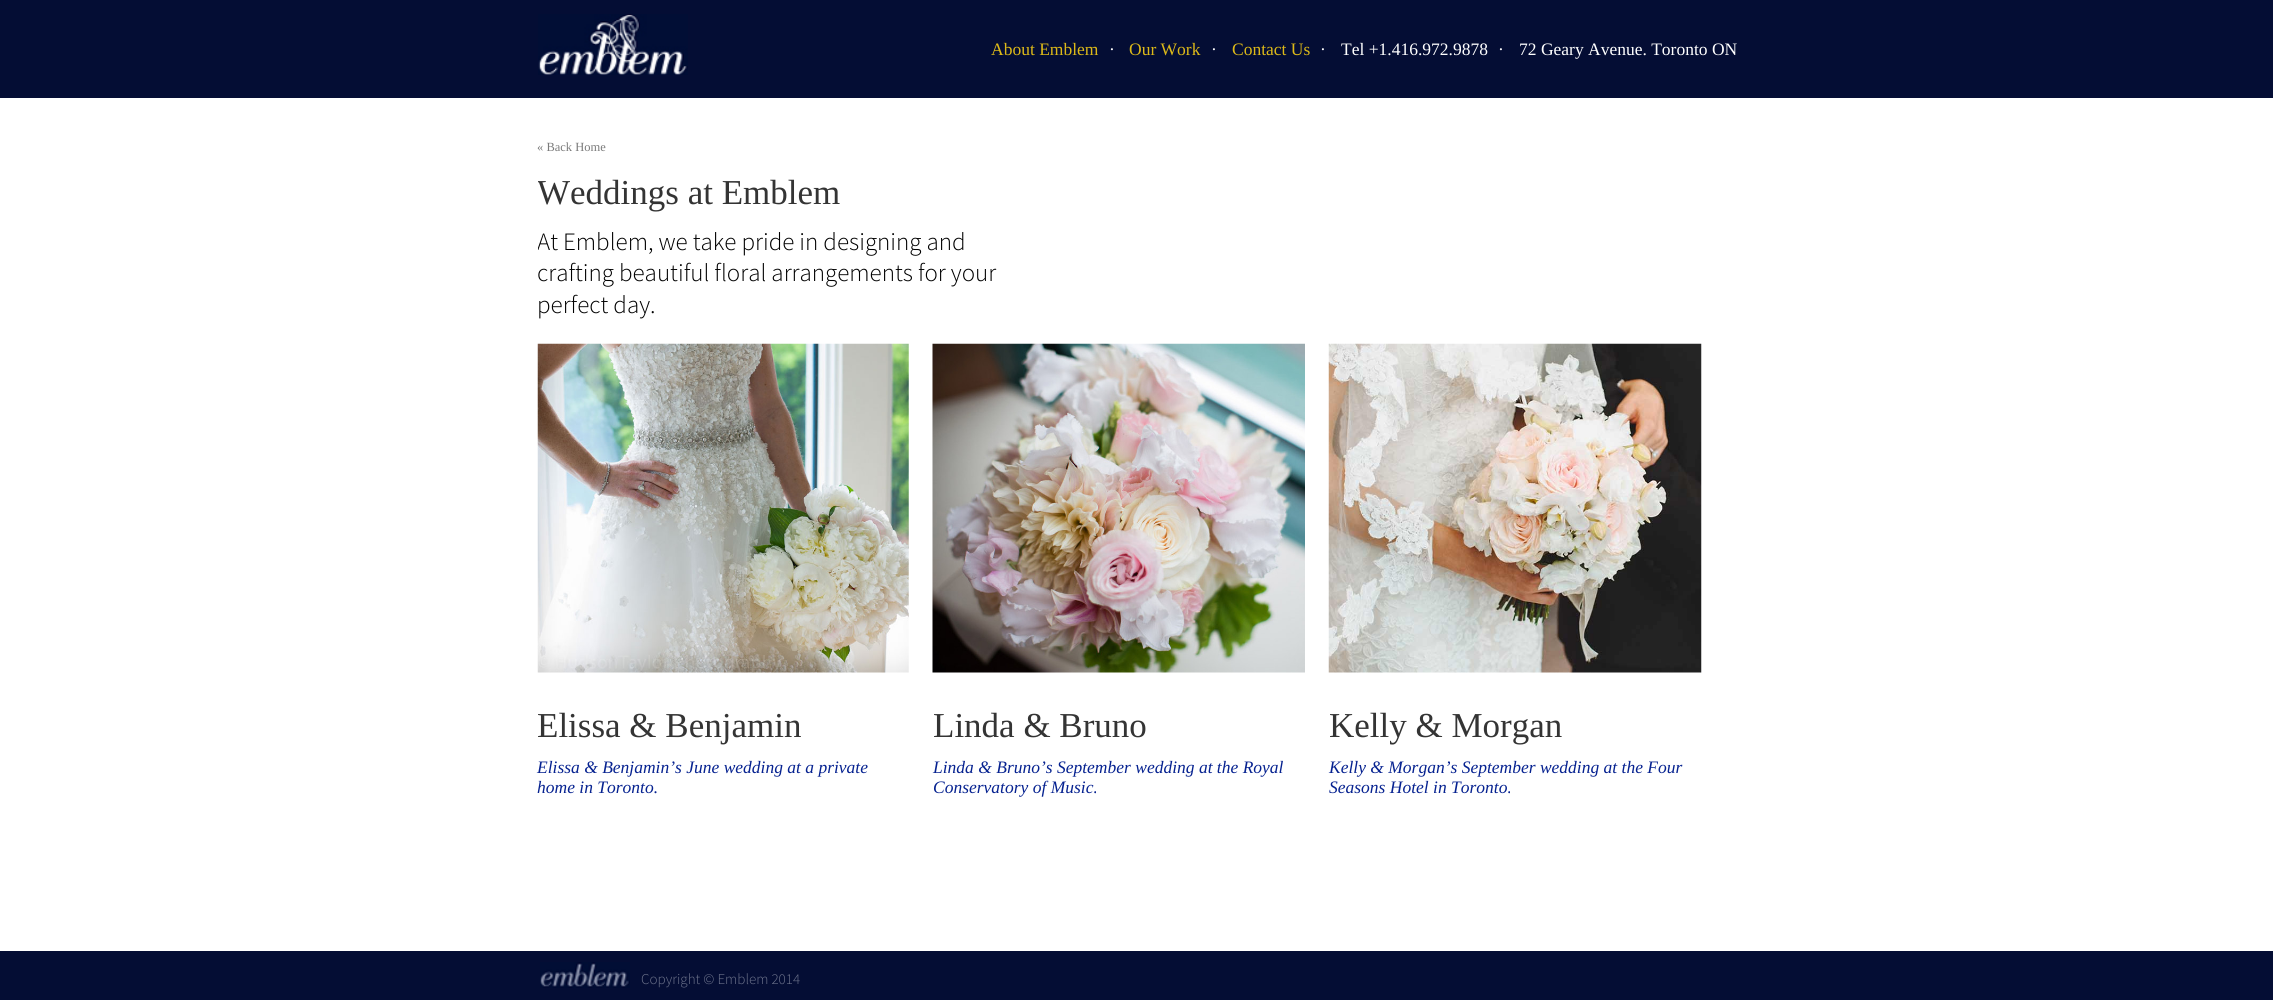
import math
import cairo

surface = cairo.ImageSurface(cairo.FORMAT_RGB24, 2273, 1000)
ctx = cairo.Context(surface)
options = cairo.FontOptions()
options.set_hint_metrics(cairo.HINT_METRICS_OFF)
options.set_hint_style(cairo.HINT_STYLE_NONE)
ctx.set_font_options(options)
ctx.set_miter_limit(4)


def set_color(code):
    ctx.set_source_rgb(*(v / 255 for v in bytes.fromhex(code[-6:])))


def draw_text(x, y, s, family, size, color, bold=False, italic=False):
    ctx.select_font_face(family, cairo.FONT_SLANT_ITALIC if italic else cairo.FONT_SLANT_NORMAL, cairo.FONT_WEIGHT_BOLD if bold else cairo.FONT_WEIGHT_NORMAL)
    ctx.set_font_size(size)
    set_color(color)
    ctx.move_to(x, y)
    ctx.show_text(s)


def fill_rect(x, y, w, h, color):
    set_color(color)
    ctx.rectangle(x, y, w, h)
    ctx.fill()


def draw_image(path, x, y, w, h):
    ctx.save()
    ctx.set_source_surface(cairo.ImageSurface.create_from_png(path), x, y)
    ctx.rectangle(x, y, w, h)
    ctx.fill()
    ctx.restore()


set_color("#ffffff")
ctx.paint()
fill_rect(0, 0, 2273, 98, "#040d34")
draw_image("assets/img1.png", 538, 14, 150, 61)
draw_text(991, 55, "About Emblem", "Liberation Serif", 17.5, "#ddb918")
draw_text(1109, 55, "·", "Liberation Serif", 17.5, "#ffffff")
draw_text(1129, 55, "Our Work", "Liberation Serif", 17.5, "#ddb918")
draw_text(1211, 55, "·", "Liberation Serif", 17.5, "#ffffff")
draw_text(1232, 55, "Contact Us", "Liberation Serif", 17.5, "#ddb918")
draw_text(1320, 55, "·", "Liberation Serif", 17.5, "#ffffff")
draw_text(1341, 55, "Tel +1.416.972.9878", "Liberation Serif", 17.5, "#ffffff")
draw_text(1498, 55, "·", "Liberation Serif", 17.5, "#ffffff")
draw_text(1519, 55, "72 Geary Avenue. Toronto ON", "Liberation Serif", 17.5, "#ffffff")
draw_text(537, 151, "« Back Home", "Liberation Serif", 12.5, "#7b7b7b")
ctx.save()
ctx.rectangle(538, 123, 1200, 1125)
ctx.clip()
draw_text(537, 204, "Weddings at Emblem", "Liberation Serif", 35, "#343434")
draw_text(537, 250, "At Emblem, we take pride in designing and", "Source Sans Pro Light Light", 25, "#000000")
ctx.restore()
draw_text(537, 281, "crafting beautiful floral arrangements for your", "Source Sans Pro Light Light", 25, "#000000")
draw_text(537, 313, "perfect day.", "Source Sans Pro Light Light", 25, "#000000")
draw_image("assets/img2.png", 537, 343, 372, 330)
draw_text(537, 737, "Elissa & Benjamin", "Liberation Serif", 35, "#343434")
draw_text(537, 773, "Elissa & Benjamin’s June wedding at a private", "Liberation Serif", 17.5, "#062290", italic=True)
draw_text(537, 793, "home in Toronto.", "Liberation Serif", 17.5, "#062290", italic=True)
draw_image("assets/img3.png", 932, 343, 373, 330)
draw_text(933, 737, "Linda & Bruno", "Liberation Serif", 35, "#343434")
draw_text(933, 773, "Linda & Bruno’s September wedding at the Royal", "Liberation Serif", 17.5, "#062290", italic=True)
draw_text(933, 793, "Conservatory of Music.", "Liberation Serif", 17.5, "#062290", italic=True)
draw_image("assets/img4.png", 1328, 343, 374, 330)
draw_text(1329, 737, "Kelly & Morgan", "Liberation Serif", 35, "#343434")
draw_text(1329, 773, "Kelly & Morgan’s September wedding at the Four", "Liberation Serif", 17.5, "#062290", italic=True)
draw_text(1329, 793, "Seasons Hotel in Toronto.", "Liberation Serif", 17.5, "#062290", italic=True)
fill_rect(0, 951, 2273, 49, "#040d34")
draw_image("assets/img5.png", 540, 962, 90, 26)
draw_text(641, 984, "Copyright © Emblem 2014", "Source Sans Pro Light Light", 15, "#6f758d")
surface.write_to_png("output.png")
